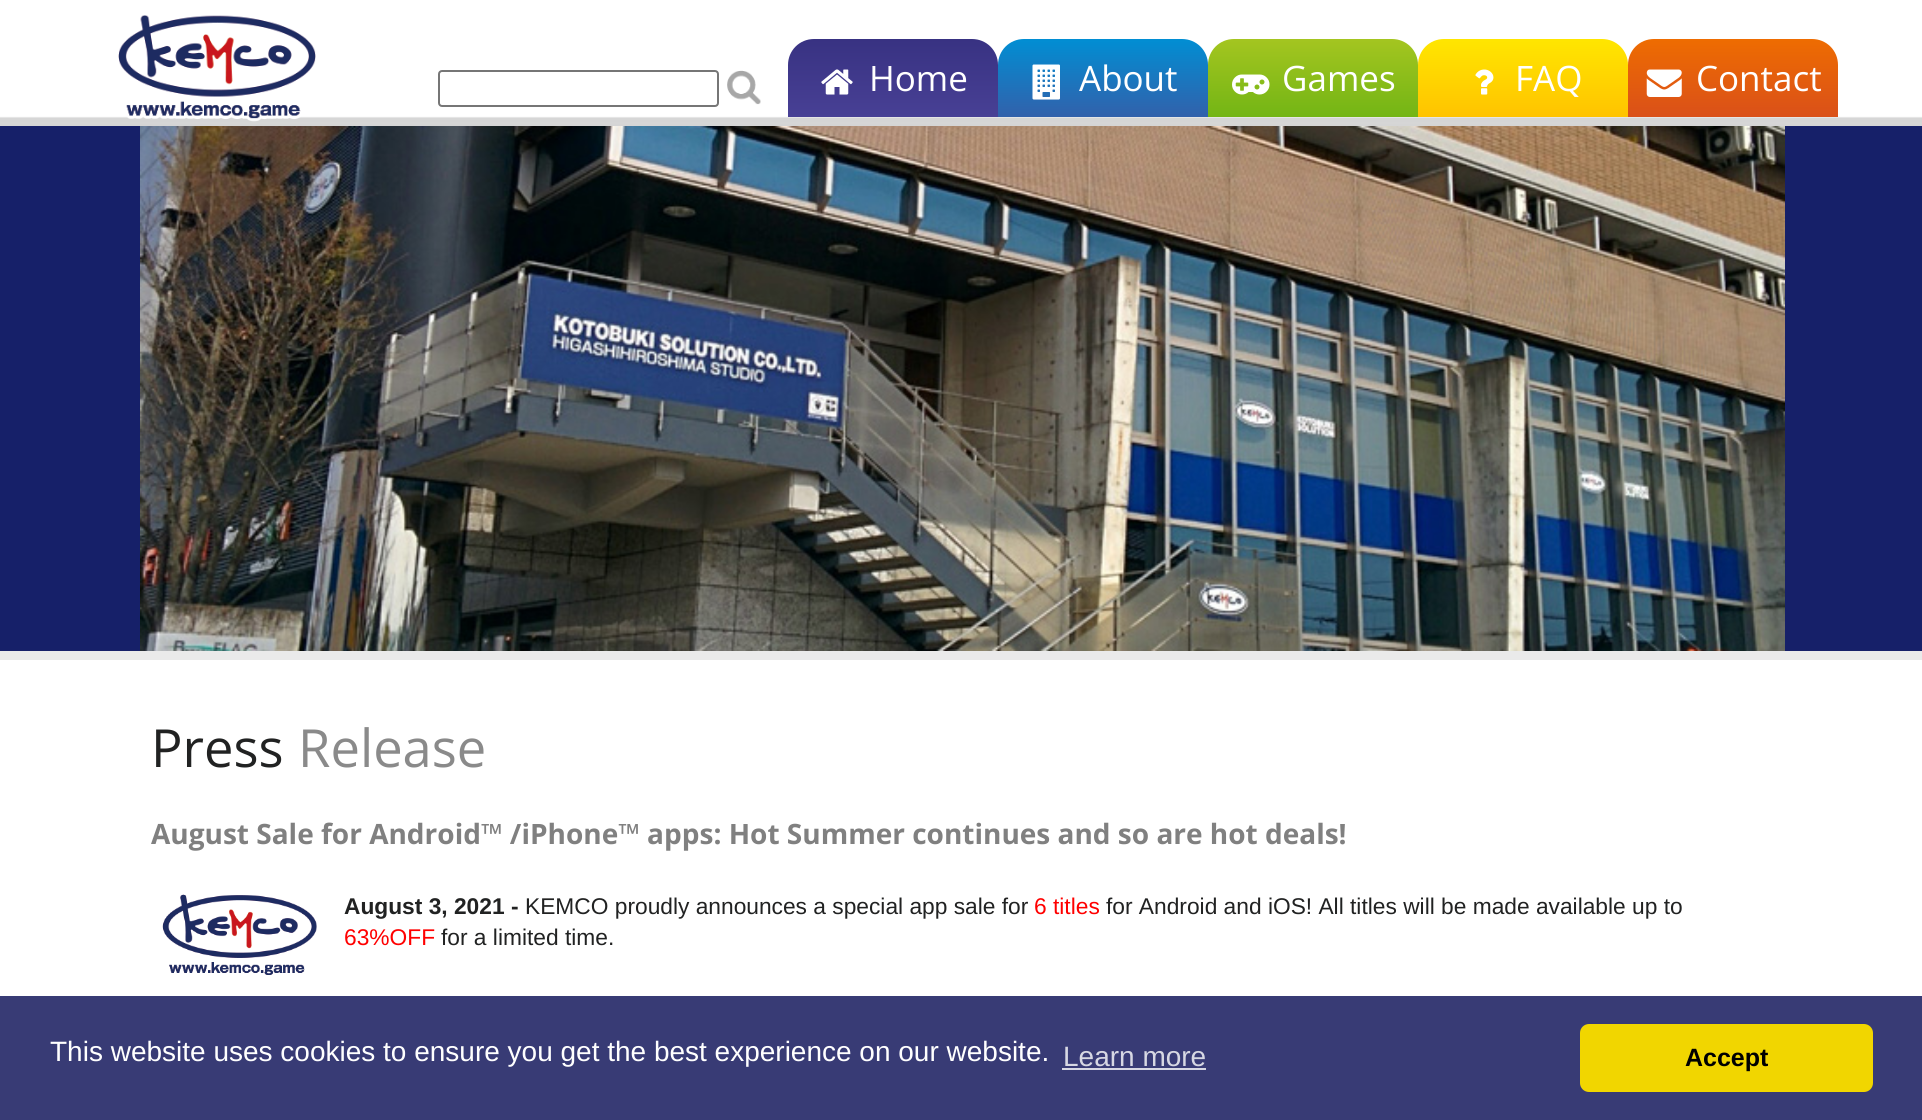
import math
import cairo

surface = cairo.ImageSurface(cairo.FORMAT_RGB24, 1922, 1120)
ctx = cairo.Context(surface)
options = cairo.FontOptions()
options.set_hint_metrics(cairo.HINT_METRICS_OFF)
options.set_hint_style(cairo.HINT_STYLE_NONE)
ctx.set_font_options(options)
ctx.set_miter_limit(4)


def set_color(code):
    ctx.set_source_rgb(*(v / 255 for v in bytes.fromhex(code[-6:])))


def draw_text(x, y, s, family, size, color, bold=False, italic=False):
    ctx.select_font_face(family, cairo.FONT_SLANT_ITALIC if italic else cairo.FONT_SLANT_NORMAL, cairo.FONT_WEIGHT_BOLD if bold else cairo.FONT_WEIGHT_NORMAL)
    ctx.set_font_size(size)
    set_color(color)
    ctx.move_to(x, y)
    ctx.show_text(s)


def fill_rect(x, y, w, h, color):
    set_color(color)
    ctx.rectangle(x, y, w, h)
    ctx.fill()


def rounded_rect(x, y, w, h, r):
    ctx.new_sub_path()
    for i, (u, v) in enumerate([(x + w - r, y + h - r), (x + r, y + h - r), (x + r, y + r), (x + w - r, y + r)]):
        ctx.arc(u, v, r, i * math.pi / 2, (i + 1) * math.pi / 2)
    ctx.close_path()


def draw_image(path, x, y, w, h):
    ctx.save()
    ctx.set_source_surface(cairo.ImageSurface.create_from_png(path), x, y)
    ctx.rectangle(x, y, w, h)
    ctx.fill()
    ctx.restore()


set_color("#162069")
ctx.paint()
draw_image("assets/img1.png", 0, 0, 1922, 126)
draw_image("assets/img2.png", 118, 15, 198, 107)
rounded_rect(439, 71, 279, 35, 3)
set_color("#767676")
ctx.stroke()
draw_image("assets/img3.png", 727, 70, 34, 35)
gradient = cairo.LinearGradient(788, 39, 788, 117)
gradient.add_color_stop_rgba(0, 0.22, 0.196, 0.51, 1)
gradient.add_color_stop_rgba(1, 0.282, 0.251, 0.584, 1)
ctx.set_source(gradient)
ctx.new_path()
ctx.move_to(814, 39)
ctx.line_to(972, 39)
ctx.curve_to(986.5, 39, 998, 50.5, 998, 65)
ctx.line_to(998, 117)
ctx.line_to(788, 117)
ctx.line_to(788, 65)
ctx.curve_to(788, 50.5, 799.5, 39, 814, 39)
ctx.close_path()
ctx.fill()
draw_image("assets/img4.png", 821, 69, 32, 26)
draw_text(869, 91, "Home", "Open Sans", 35, "#ffffff")
gradient = cairo.LinearGradient(998, 39, 998, 117)
gradient.add_color_stop_rgba(0, 0.004, 0.557, 0.827, 1)
gradient.add_color_stop_rgba(1, 0.196, 0.38, 0.671, 1)
ctx.set_source(gradient)
ctx.new_path()
ctx.move_to(1024, 39)
ctx.line_to(1182, 39)
ctx.curve_to(1196.5, 39, 1208, 50.5, 1208, 65)
ctx.line_to(1208, 117)
ctx.line_to(998, 117)
ctx.line_to(998, 65)
ctx.curve_to(998, 50.5, 1009.5, 39, 1024, 39)
ctx.close_path()
ctx.fill()
draw_image("assets/img5.png", 1032, 64, 28, 36)
draw_text(1079, 91, "About", "Open Sans", 35, "#ffffff")
gradient = cairo.LinearGradient(1208, 39, 1208, 117)
gradient.add_color_stop_rgba(0, 0.643, 0.773, 0.125, 1)
gradient.add_color_stop_rgba(1, 0.451, 0.71, 0.082, 1)
ctx.set_source(gradient)
ctx.new_path()
ctx.move_to(1234, 39)
ctx.line_to(1392, 39)
ctx.curve_to(1406.5, 39, 1418, 50.5, 1418, 65)
ctx.line_to(1418, 117)
ctx.line_to(1208, 117)
ctx.line_to(1208, 65)
ctx.curve_to(1208, 50.5, 1219.5, 39, 1234, 39)
ctx.close_path()
ctx.fill()
draw_image("assets/img6.png", 1232, 74, 38, 21)
draw_text(1282, 91, "Games", "Open Sans", 35, "#ffffff")
gradient = cairo.LinearGradient(1418, 39, 1418, 117)
gradient.add_color_stop_rgba(0, 1, 0.902, 0, 1)
gradient.add_color_stop_rgba(1, 1, 0.765, 0, 1)
ctx.set_source(gradient)
ctx.new_path()
ctx.move_to(1444, 39)
ctx.line_to(1602, 39)
ctx.curve_to(1616.5, 39, 1628, 50.5, 1628, 65)
ctx.line_to(1628, 117)
ctx.line_to(1418, 117)
ctx.line_to(1418, 65)
ctx.curve_to(1418, 50.5, 1429.5, 39, 1444, 39)
ctx.close_path()
ctx.fill()
draw_image("assets/img7.png", 1475, 69, 19, 26)
draw_text(1515, 91, "FAQ", "Open Sans", 35, "#ffffff")
gradient = cairo.LinearGradient(1628, 39, 1628, 117)
gradient.add_color_stop_rgba(0, 0.933, 0.424, 0.004, 1)
gradient.add_color_stop_rgba(1, 0.855, 0.314, 0.098, 1)
ctx.set_source(gradient)
ctx.new_path()
ctx.move_to(1654, 39)
ctx.line_to(1812, 39)
ctx.curve_to(1826.5, 39, 1838, 50.5, 1838, 65)
ctx.line_to(1838, 117)
ctx.line_to(1628, 117)
ctx.line_to(1628, 65)
ctx.curve_to(1628, 50.5, 1639.5, 39, 1654, 39)
ctx.close_path()
ctx.fill()
draw_image("assets/img8.png", 1646, 69, 36, 28)
draw_text(1696, 91, "Contact", "Open Sans", 35, "#ffffff")
draw_image("assets/img9.png", 140, 126, 1645, 525)
fill_rect(0, 660, 1922, 336, "#ffffff")
fill_rect(0, 651, 1922, 9, "#eaeaea")
draw_text(151, 767, "Press", "Open Sans", 52.5, "#212222")
draw_text(298, 767, "Release", "Open Sans", 52.5, "#8a8a8a")
draw_text(151, 844, "August Sale for Android™ /iPhone™ apps: Hot Summer continues and so are hot deals!", "Open Sans", 28, "#808080", bold=True)
draw_image("assets/img10.png", 162, 894, 155, 81)
draw_text(344, 914, "August 3, 2021 -", "Liberation Sans", 22.75, "#212222", bold=True)
draw_text(525, 914, "KEMCO proudly announces a special app sale for", "Liberation Sans", 22.75, "#212222")
draw_text(1034, 914, "6 titles", "Liberation Sans", 22.75, "#ff0000")
draw_text(1106, 914, "for Android and iOS! All titles will be made available up to", "Liberation Sans", 22.75, "#212222")
draw_text(344, 945, "63%OFF", "Liberation Sans", 22.75, "#ff0000")
draw_text(441, 945, "for a limited time.", "Liberation Sans", 22.75, "#212222")
fill_rect(0, 996, 1922, 124, "#383b75")
draw_text(50, 1061, "This website uses cookies to ensure you get the best experience on our website.", "Liberation Sans", 28, "#ffffff")
draw_text(1063, 1066, "Learn more", "Liberation Sans", 28, "#d7d8e3")
fill_rect(1062, 1068, 144, 2, "#d7d8e3")
set_color("#f1d600")
rounded_rect(1580, 1024, 293, 68, 9)
ctx.fill()
draw_text(1685, 1066, "Accept", "Liberation Sans", 25, "#000000", bold=True)
surface.write_to_png("output.png")
